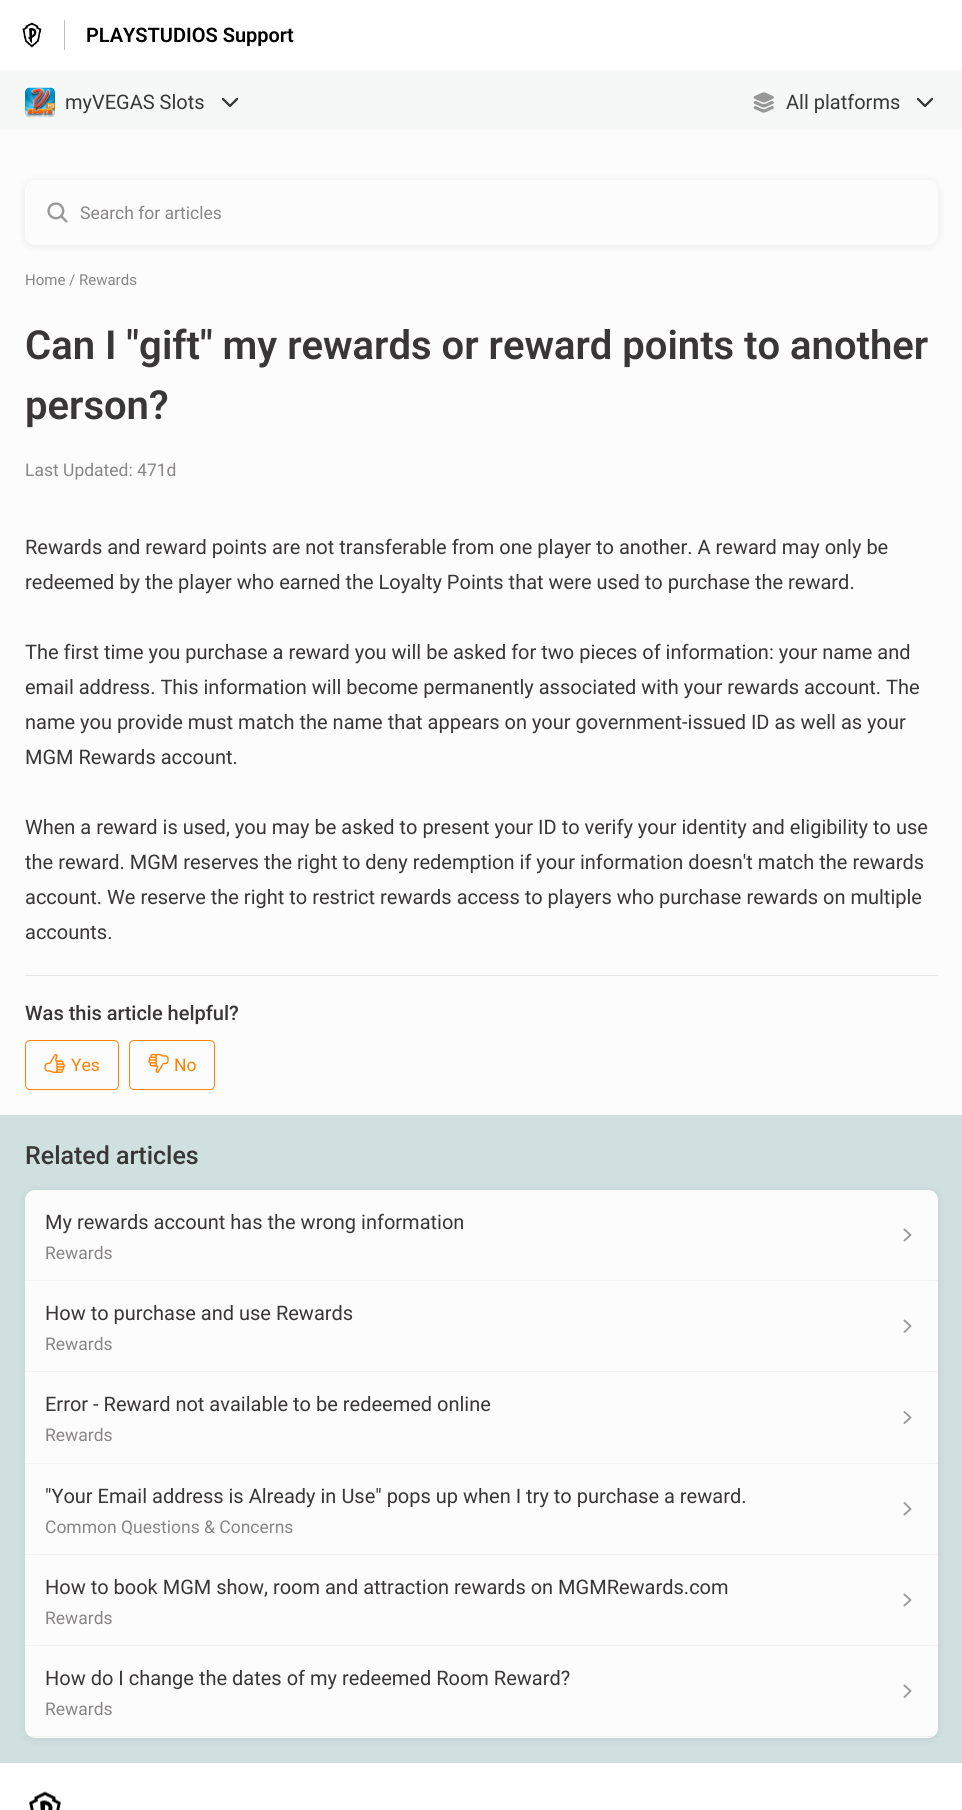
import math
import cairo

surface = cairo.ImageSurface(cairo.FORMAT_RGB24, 962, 1810)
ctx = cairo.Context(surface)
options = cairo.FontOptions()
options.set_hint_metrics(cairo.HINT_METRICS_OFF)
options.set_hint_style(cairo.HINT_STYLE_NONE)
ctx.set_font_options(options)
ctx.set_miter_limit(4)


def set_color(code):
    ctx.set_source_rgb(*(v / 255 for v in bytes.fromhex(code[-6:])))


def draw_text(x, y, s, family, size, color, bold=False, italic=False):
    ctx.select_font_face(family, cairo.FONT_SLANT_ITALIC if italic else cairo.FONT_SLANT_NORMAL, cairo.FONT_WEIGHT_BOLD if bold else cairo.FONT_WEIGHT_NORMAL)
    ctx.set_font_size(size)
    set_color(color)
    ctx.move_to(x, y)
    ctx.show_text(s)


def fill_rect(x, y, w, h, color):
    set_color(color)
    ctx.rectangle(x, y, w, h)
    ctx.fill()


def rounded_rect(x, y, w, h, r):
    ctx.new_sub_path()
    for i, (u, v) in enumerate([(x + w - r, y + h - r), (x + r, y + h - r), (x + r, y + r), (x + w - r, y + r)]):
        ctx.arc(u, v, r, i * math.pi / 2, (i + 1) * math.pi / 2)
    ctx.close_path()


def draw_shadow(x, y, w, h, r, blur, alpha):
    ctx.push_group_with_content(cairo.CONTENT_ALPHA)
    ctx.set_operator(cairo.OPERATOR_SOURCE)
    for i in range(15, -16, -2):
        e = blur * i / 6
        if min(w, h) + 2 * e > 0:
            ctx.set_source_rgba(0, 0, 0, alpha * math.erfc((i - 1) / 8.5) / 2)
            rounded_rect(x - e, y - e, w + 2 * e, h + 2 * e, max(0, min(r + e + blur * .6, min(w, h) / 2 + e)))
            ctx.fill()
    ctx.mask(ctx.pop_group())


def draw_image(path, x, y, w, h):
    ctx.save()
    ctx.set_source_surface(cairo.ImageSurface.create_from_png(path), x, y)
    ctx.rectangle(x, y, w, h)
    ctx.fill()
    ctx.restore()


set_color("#f6f8f8")
ctx.paint()
fill_rect(0, 0, 962, 70, "#ffffff")
fill_rect(64, 20, 1, 30, "#bfbfbf")
draw_image("assets/img1.png", 22, 22, 20, 26)
draw_text(86, 42, "PLAYSTUDIOS Support", "Roboto SemiBold", 20, "#000000")
draw_image("assets/img2.png", 25, 87, 30, 31)
draw_text(65, 109, "myVEGAS Slots", "Roboto", 20, "#383636")
ctx.new_path()
ctx.move_to(223, 99)
ctx.line_to(230, 106)
ctx.line_to(237, 99)
ctx.set_line_width(2.3)
ctx.set_line_cap(cairo.LINE_CAP_ROUND)
ctx.set_line_join(cairo.LINE_JOIN_ROUND)
ctx.stroke()
draw_image("assets/img3.png", 753, 92, 21, 21)
draw_text(786, 109, "All platforms", "Roboto", 20, "#383636")
ctx.new_path()
ctx.move_to(918, 99)
ctx.line_to(925, 106)
ctx.line_to(932, 99)
ctx.stroke()
fill_rect(0, 1115, 962, 648, "#d0dfdf")
fill_rect(0, 130, 962, 985, "#fdfcfc")
set_color("#000000")
draw_shadow(25, 181, 913, 65, 10, 5, 0.08)
set_color("#fdfcfc")
rounded_rect(25, 180, 913, 65, 10)
ctx.fill()
draw_image("assets/img4.png", 47, 202, 21, 21)
draw_text(80, 219, "Search for articles", "Roboto", 17.5, "#878585")
draw_text(25, 285, "Home / Rewards", "Roboto", 15, "#878585")
draw_text(25, 359, "Can I \"gift\" my rewards or reward points to another", "Roboto SemiBold", 40, "#383636")
draw_text(25, 419, "person?", "Roboto SemiBold", 40, "#383636")
draw_text(25, 476, "Last Updated: 471d", "Roboto", 17.5, "#878585")
fill_rect(25, 975, 913, 1, "#e9e8e8")
draw_text(25, 554, "Rewards and reward points are not transferable from one player to another. A reward may only be", "Roboto", 20, "#383636")
draw_text(25, 589, "redeemed by the player who earned the Loyalty Points that were used to purchase the reward.", "Roboto", 20, "#383636")
draw_text(25, 659, "The first time you purchase a reward you will be asked for two pieces of information: your name and", "Roboto", 20, "#383636")
draw_text(25, 694, "email address. This information will become permanently associated with your rewards account. The", "Roboto", 20, "#383636")
draw_text(25, 729, "name you provide must match the name that appears on your government-issued ID as well as your", "Roboto", 20, "#383636")
draw_text(25, 764, "MGM Rewards account.", "Roboto", 20, "#383636")
draw_text(25, 834, "When a reward is used, you may be asked to present your ID to verify your identity and eligibility to use", "Roboto", 20, "#383636")
draw_text(25, 869, "the reward. MGM reserves the right to deny redemption if your information doesn't match the rewards", "Roboto", 20, "#383636")
draw_text(25, 904, "account. We reserve the right to restrict rewards access to players who purchase rewards on multiple", "Roboto", 20, "#383636")
draw_text(25, 939, "accounts.", "Roboto", 20, "#383636")
draw_text(25, 1020, "Was this article helpful?", "Roboto Medium", 20, "#383636")
rounded_rect(25.5, 1040.5, 93, 49, 4.5)
set_color("#ff8200")
ctx.set_line_width(1)
ctx.set_line_cap(cairo.LINE_CAP_BUTT)
ctx.set_line_join(cairo.LINE_JOIN_MITER)
ctx.stroke()
draw_image("assets/img5.png", 44, 1053, 21, 20)
draw_text(71, 1071, "Yes", "Roboto", 17.5, "#ff8200")
rounded_rect(129.5, 1040.5, 85, 49, 4.5)
ctx.stroke()
draw_image("assets/img6.png", 148, 1053, 21, 20)
draw_text(174, 1071, "No", "Roboto", 17.5, "#ff8200")
draw_text(25, 1164, "Related articles", "Roboto Medium", 25, "#383636")
set_color("#000000")
draw_shadow(25, 1191, 913, 548, 10, 5, 0.08)
set_color("#fdfcfc")
rounded_rect(25, 1190, 913, 548, 10)
ctx.fill()
fill_rect(25, 1280, 913, 1, "#f3f2f2")
draw_text(45, 1229, "My rewards account has the wrong information", "Roboto", 20, "#383636")
draw_text(45, 1259, "Rewards", "Roboto", 17.5, "#878585")
ctx.new_path()
ctx.move_to(904.5, 1229.5)
ctx.line_to(910.5, 1235)
ctx.line_to(904.5, 1240.5)
set_color("#9b9999")
ctx.set_line_width(1.9)
ctx.set_line_cap(cairo.LINE_CAP_ROUND)
ctx.set_line_join(cairo.LINE_JOIN_ROUND)
ctx.stroke()
fill_rect(25, 1371, 913, 1, "#f3f2f2")
draw_text(45, 1320, "How to purchase and use Rewards", "Roboto", 20, "#383636")
draw_text(45, 1350, "Rewards", "Roboto", 17.5, "#878585")
ctx.new_path()
ctx.move_to(904.5, 1320.5)
ctx.line_to(910.5, 1326)
ctx.line_to(904.5, 1332)
set_color("#9b9999")
ctx.stroke()
fill_rect(25, 1463, 913, 1, "#f3f2f2")
draw_text(45, 1411, "Error - Reward not available to be redeemed online", "Roboto", 20, "#383636")
draw_text(45, 1441, "Rewards", "Roboto", 17.5, "#878585")
ctx.new_path()
ctx.move_to(904.5, 1412)
ctx.line_to(910.5, 1417.5)
ctx.line_to(904.5, 1423)
set_color("#9b9999")
ctx.stroke()
fill_rect(25, 1554, 913, 1, "#f3f2f2")
draw_text(45, 1503, "\"Your Email address is Already in Use\" pops up when I try to purchase a reward.", "Roboto", 20, "#383636")
draw_text(45, 1533, "Common Questions & Concerns", "Roboto", 17.5, "#878585")
ctx.new_path()
ctx.move_to(904.5, 1503)
ctx.line_to(910.5, 1509)
ctx.line_to(904.5, 1514.5)
set_color("#9b9999")
ctx.stroke()
fill_rect(25, 1645, 913, 1, "#f3f2f2")
draw_text(45, 1594, "How to book MGM show, room and attraction rewards on MGMRewards.com", "Roboto", 20, "#383636")
draw_text(45, 1624, "Rewards", "Roboto", 17.5, "#878585")
ctx.new_path()
ctx.move_to(904.5, 1594.5)
ctx.line_to(910.5, 1600)
ctx.line_to(904.5, 1605.5)
set_color("#9b9999")
ctx.stroke()
ctx.set_source_rgba(0.22, 0.212, 0.212, 0.05)
ctx.rectangle(25, 1736, 913, 1)
ctx.fill()
draw_text(45, 1685, "How do I change the dates of my redeemed Room Reward?", "Roboto", 20, "#383636")
draw_text(45, 1715, "Rewards", "Roboto", 17.5, "#878585")
ctx.new_path()
ctx.move_to(904.5, 1685.5)
ctx.line_to(910.5, 1691)
ctx.line_to(904.5, 1697)
set_color("#9b9999")
ctx.stroke()
fill_rect(0, 1763, 962, 47, "#ffffff")
draw_image("assets/img7.png", 29, 1791, 32, 19)
surface.write_to_png("output.png")
